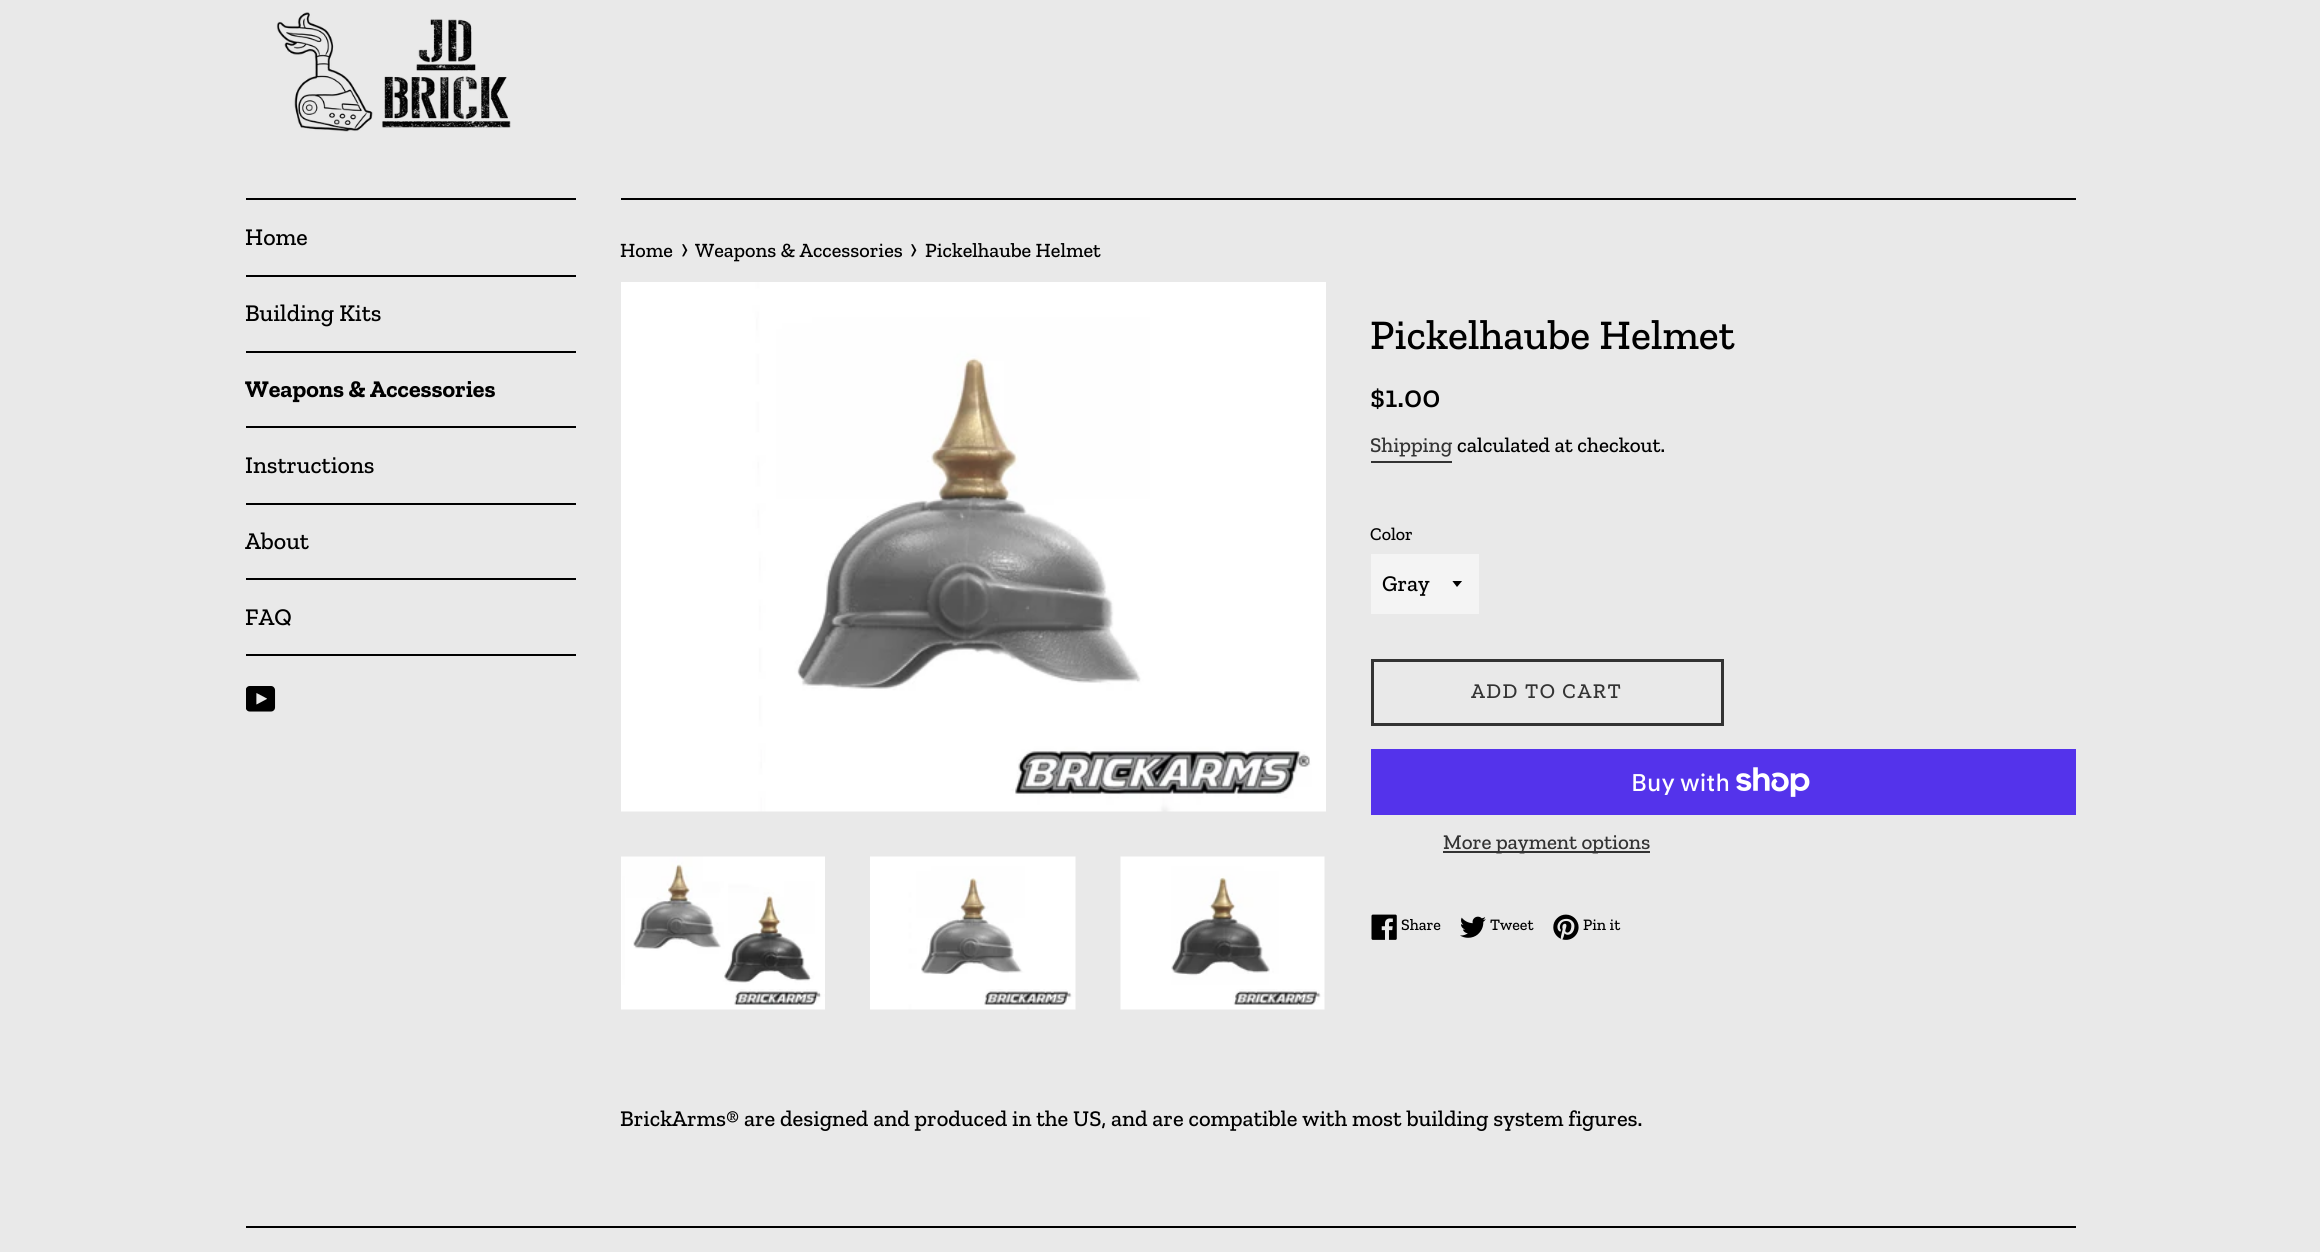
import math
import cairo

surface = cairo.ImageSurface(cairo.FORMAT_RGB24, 2320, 1252)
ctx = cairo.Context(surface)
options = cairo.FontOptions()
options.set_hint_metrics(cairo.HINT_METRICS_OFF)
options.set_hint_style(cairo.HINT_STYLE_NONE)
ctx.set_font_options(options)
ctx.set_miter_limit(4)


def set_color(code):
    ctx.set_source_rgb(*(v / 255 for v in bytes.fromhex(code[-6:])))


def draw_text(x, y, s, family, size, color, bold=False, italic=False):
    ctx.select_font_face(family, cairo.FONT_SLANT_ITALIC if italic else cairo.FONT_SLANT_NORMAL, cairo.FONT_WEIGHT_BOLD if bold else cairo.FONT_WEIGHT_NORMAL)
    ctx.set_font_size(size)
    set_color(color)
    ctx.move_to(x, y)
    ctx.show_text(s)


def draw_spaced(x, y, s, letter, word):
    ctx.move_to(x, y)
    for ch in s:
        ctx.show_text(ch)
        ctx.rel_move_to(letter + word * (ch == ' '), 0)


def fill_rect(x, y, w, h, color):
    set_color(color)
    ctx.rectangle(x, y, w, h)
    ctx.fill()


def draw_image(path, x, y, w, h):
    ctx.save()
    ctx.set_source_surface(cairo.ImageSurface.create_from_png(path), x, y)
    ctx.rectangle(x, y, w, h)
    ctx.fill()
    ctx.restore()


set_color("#e9e9e9")
ctx.paint()
draw_image("assets/img1.png", 276, 12, 235, 120)
fill_rect(246, 198, 330, 2, "#000000")
fill_rect(246, 275, 330, 2, "#000000")
draw_text(245, 245, "Home", "Zilla Slab Medium", 24, "#000000")
fill_rect(246, 351, 330, 2, "#000000")
draw_text(245, 321, "Building Kits", "Zilla Slab Medium", 24, "#000000")
fill_rect(246, 426, 330, 2, "#000000")
draw_text(245, 397, "Weapons & Accessories", "Zilla Slab", 24, "#000000", bold=True)
fill_rect(246, 503, 330, 2, "#000000")
draw_text(245, 473, "Instructions", "Zilla Slab Medium", 24, "#000000")
fill_rect(246, 578, 330, 2, "#000000")
draw_text(245, 549, "About", "Zilla Slab Medium", 24, "#000000")
fill_rect(246, 654, 330, 2, "#000000")
draw_text(245, 625, "FAQ", "Zilla Slab Medium", 24, "#000000")
draw_image("assets/img2.png", 246, 686, 30, 26)
fill_rect(621, 198, 1455, 2, "#000000")
draw_text(620, 257, "Home", "Zilla Slab Medium", 20.25, "#000000")
draw_text(681, 257, "›", "Zilla Slab Medium", 25, "#000000")
draw_text(695, 257, "Weapons & Accessories", "Zilla Slab Medium", 20.25, "#000000")
draw_text(910, 257, "›", "Zilla Slab Medium", 25, "#000000")
draw_text(925, 257, "Pickelhaube Helmet", "Zilla Slab Medium", 20.25, "#000000")
draw_image("assets/img3.png", 621, 282, 705, 530)
draw_image("assets/img4.png", 621, 856, 204, 154)
draw_image("assets/img5.png", 870, 856, 206, 154)
draw_image("assets/img6.png", 1120, 856, 205, 154)
draw_text(1370, 349, "Pickelhaube Helmet", "Zilla Slab Medium", 42, "#000000")
draw_text(1370, 407, "$1.00", "Zilla Slab Medium", 31.5, "#000000")
draw_text(1370, 452, "Shipping", "Zilla Slab Medium", 21, "#333333")
fill_rect(1371, 461, 81, 2, "#333333")
draw_text(1457, 452, "calculated at checkout.", "Zilla Slab Medium", 21, "#000000")
draw_text(1370, 540, "Color", "Zilla Slab Medium", 18, "#000000")
fill_rect(1371, 554, 108, 60, "#f4f4f4")
ctx.save()
ctx.rectangle(1452, 581, 12, 7)
ctx.clip()
set_color("#000000")
ctx.new_path()
ctx.move_to(1452, 580.5)
ctx.line_to(1457, 587)
ctx.line_to(1462.5, 580.5)
ctx.close_path()
ctx.fill()
ctx.restore()
draw_text(1382, 591, "Gray", "Zilla Slab Medium", 22.5, "#000000")
ctx.rectangle(1372.5, 660.5, 350, 64)
set_color("#333333")
ctx.set_line_width(3)
ctx.stroke()
ctx.set_font_size(21)
draw_spaced(1471, 698, "ADD TO CART", 1.5, 0)
fill_rect(1371, 749, 705, 66, "#5433eb")
draw_text(1631, 791, "Buy with", "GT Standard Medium", 24, "#ffffff")
draw_image("assets/img7.png", 1736, 767, 74, 30)
fill_rect(1443, 851, 207, 2, "#333333")
draw_text(1443, 849, "More payment options", "Zilla Slab Medium", 21, "#333333")
draw_image("assets/img8.png", 1371, 914, 26, 26)
draw_text(1401, 930, "Share", "Zilla Slab Medium", 16, "#000000")
draw_image("assets/img9.png", 1460, 916, 26, 22)
draw_text(1490, 930, "Tweet", "Zilla Slab Medium", 16, "#000000")
draw_image("assets/img10.png", 1553, 914, 26, 26)
draw_text(1583, 930, "Pin it", "Zilla Slab Medium", 16, "#000000")
draw_text(620, 1126, "BrickArms® are designed and produced in the US, and are compatible with most building system figures.", "Zilla Slab Medium", 22.5, "#000000")
fill_rect(246, 1226, 1830, 2, "#000000")
surface.write_to_png("output.png")
